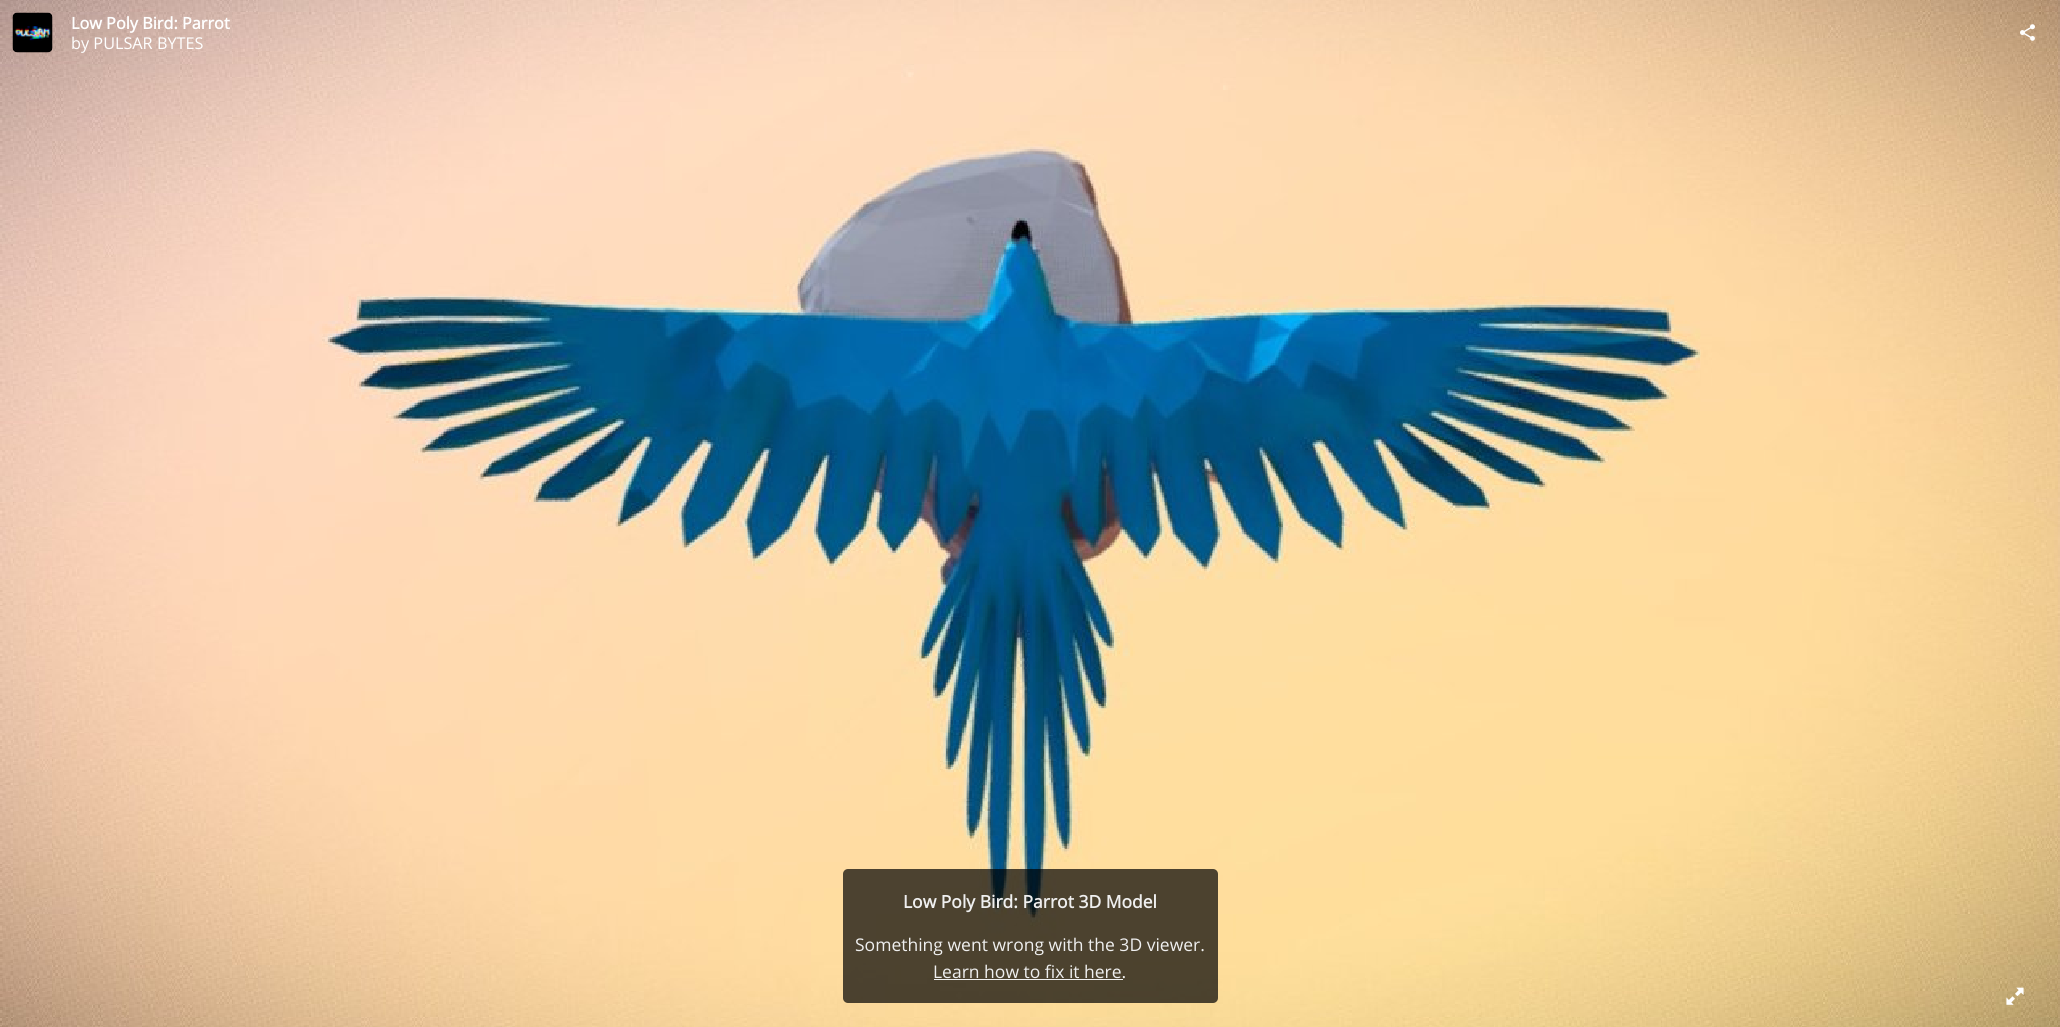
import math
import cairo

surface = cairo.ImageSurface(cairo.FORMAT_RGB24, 2060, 1027)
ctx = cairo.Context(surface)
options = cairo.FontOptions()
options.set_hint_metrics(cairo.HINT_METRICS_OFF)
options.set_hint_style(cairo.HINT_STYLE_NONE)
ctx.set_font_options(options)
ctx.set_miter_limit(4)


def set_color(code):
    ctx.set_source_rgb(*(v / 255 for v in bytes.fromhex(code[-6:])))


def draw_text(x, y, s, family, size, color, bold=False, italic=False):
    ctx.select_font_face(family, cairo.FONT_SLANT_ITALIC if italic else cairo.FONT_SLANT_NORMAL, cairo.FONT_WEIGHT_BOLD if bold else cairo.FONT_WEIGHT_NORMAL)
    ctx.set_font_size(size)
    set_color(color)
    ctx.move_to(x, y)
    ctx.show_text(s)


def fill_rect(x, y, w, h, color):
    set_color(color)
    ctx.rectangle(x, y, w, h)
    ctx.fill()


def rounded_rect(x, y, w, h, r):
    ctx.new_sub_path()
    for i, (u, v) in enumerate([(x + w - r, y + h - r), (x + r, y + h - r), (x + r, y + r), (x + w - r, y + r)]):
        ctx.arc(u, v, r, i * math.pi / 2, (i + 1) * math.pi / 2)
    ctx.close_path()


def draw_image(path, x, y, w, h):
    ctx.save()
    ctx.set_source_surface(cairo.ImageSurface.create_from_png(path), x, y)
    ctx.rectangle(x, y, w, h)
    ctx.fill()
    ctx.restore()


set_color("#ffffff")
ctx.paint()
draw_image("assets/img3.png", 0, 0, 2060, 1027)
draw_image("assets/img1.png", 12, 12, 41, 41)
draw_text(71, 29, "Low Poly Bird: Parrot", "Open Sans", 16.25, "#ffffff", bold=True)
draw_text(71, 49, "by PULSAR BYTES", "Open Sans", 16.25, "#ffffff")
draw_image("assets/img2.png", 2020, 24, 15, 17)
ctx.set_source_rgba(0, 0, 0, 0.7)
rounded_rect(843, 869, 375, 134, 5)
ctx.fill()
draw_text(903, 908, "Low Poly Bird: Parrot 3D Model", "Open Sans", 17.5, "#efefef", bold=True)
draw_text(855, 951, "Something went wrong with the 3D viewer.", "Open Sans", 17.5, "#efefef")
draw_text(933, 978, "Learn how to fix it here.", "Open Sans", 17.5, "#efefef")
fill_rect(934, 979, 189, 1, "#efefef")
draw_image("assets/img4.png", 2006, 987, 18, 18)
surface.write_to_png("output.png")
